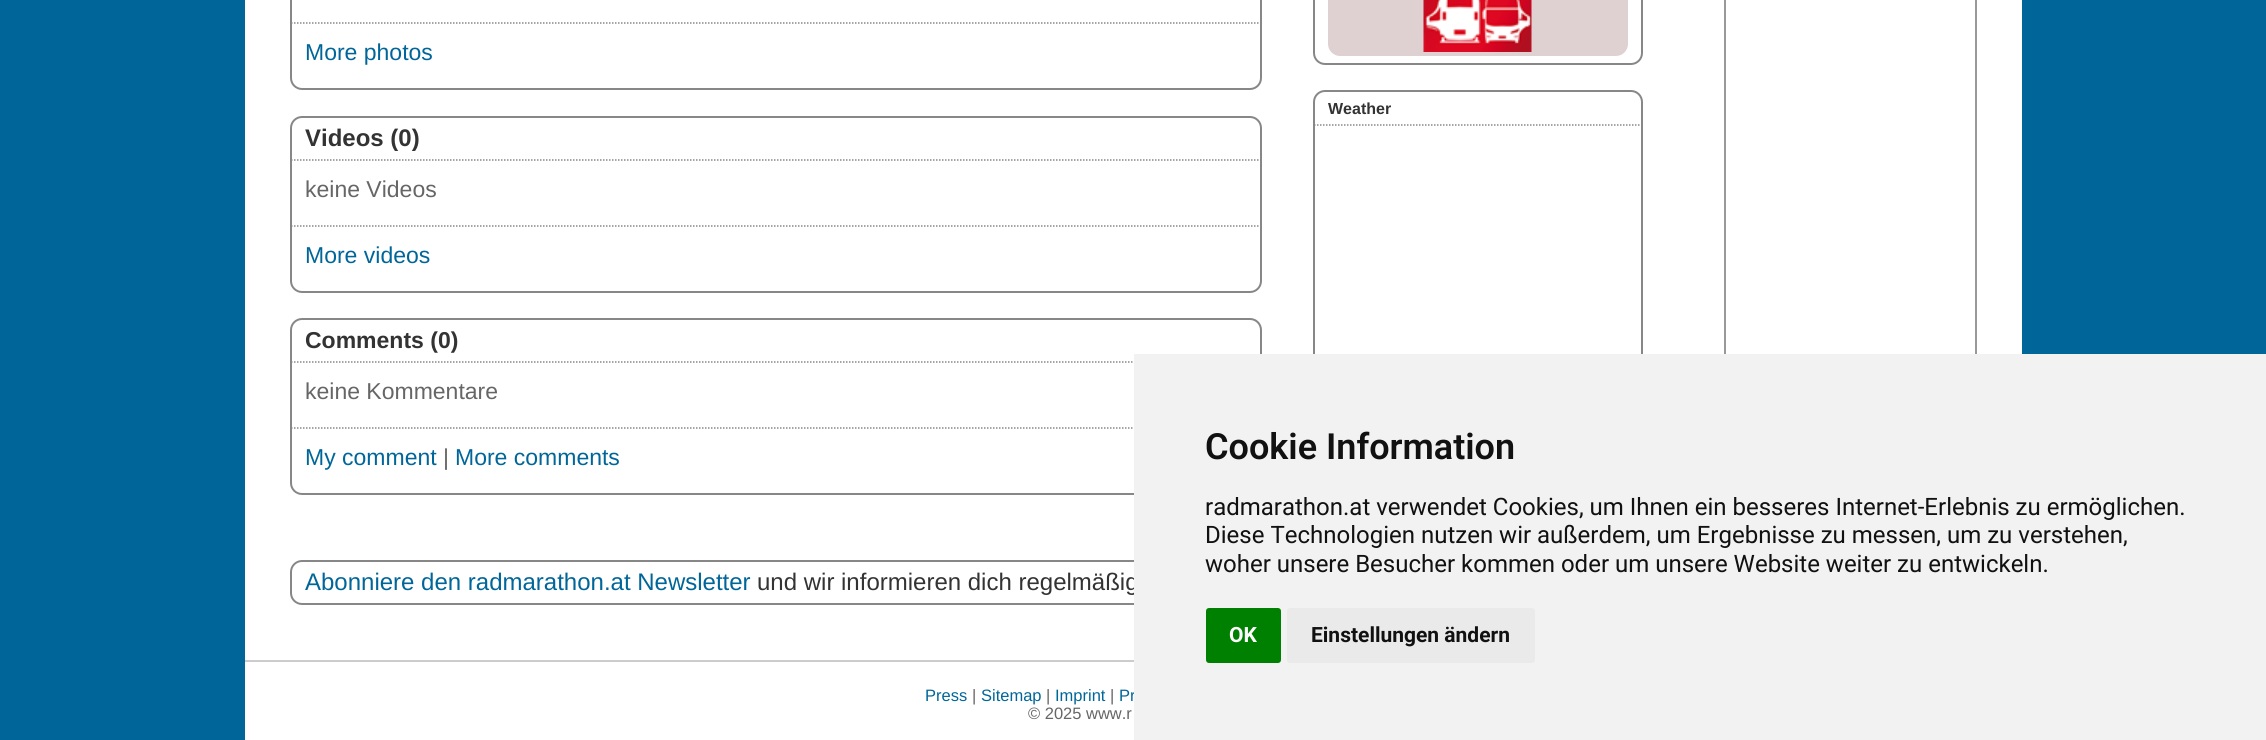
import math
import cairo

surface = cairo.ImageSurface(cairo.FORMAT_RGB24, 2266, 740)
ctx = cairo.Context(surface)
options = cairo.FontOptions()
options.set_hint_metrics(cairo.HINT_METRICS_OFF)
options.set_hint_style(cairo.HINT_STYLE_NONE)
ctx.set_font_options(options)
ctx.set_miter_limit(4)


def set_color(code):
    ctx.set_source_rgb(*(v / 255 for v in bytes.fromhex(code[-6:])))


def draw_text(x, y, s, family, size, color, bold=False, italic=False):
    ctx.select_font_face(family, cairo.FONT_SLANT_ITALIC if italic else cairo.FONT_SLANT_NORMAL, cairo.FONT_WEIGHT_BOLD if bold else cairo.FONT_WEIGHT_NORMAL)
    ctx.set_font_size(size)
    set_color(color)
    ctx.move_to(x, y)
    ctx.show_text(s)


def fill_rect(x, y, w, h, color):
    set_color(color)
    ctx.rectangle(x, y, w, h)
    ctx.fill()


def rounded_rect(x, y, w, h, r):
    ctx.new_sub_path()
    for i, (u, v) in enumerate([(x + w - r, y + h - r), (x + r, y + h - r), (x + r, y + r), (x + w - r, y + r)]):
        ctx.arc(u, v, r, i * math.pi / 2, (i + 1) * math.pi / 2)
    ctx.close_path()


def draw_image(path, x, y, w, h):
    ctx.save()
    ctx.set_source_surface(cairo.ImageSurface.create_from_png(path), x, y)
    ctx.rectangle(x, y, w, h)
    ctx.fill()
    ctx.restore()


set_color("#006699")
ctx.paint()
fill_rect(245, 0, 1777, 660, "#ffffff")
rounded_rect(291, -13, 970, 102, 11)
set_color("#878787")
ctx.stroke()
ctx.new_path()
ctx.move_to(291, 23)
ctx.line_to(1260, 23)
ctx.set_line_width(1.5)
ctx.set_dash([1.5, 1.5])
ctx.stroke()
draw_text(305, 60, "More photos", "Liberation Sans", 23, "#006699")
rounded_rect(1314, -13, 328, 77, 11)
set_color("#878787")
ctx.set_line_width(2)
ctx.set_dash([])
ctx.stroke()
set_color("#dfd1d2")
ctx.new_path()
ctx.move_to(1328, -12)
ctx.line_to(1628, -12)
ctx.line_to(1628, 44)
ctx.curve_to(1628, 50.5, 1622.5, 56, 1616, 56)
ctx.line_to(1340, 56)
ctx.curve_to(1333.5, 56, 1328, 50.5, 1328, 44)
ctx.close_path()
ctx.fill()
draw_image("assets/img1.png", 1423, 0, 109, 52)
rounded_rect(1314, 91, 328, 286, 11)
set_color("#878787")
ctx.stroke()
draw_text(1328, 114, "Weather", "Liberation Sans", 16, "#333333", bold=True)
ctx.new_path()
ctx.move_to(1314, 125)
ctx.line_to(1641, 125)
set_color("#878787")
ctx.set_line_width(1.5)
ctx.set_dash([1.5, 1.5])
ctx.stroke()
rounded_rect(291, 117, 970, 175, 11)
ctx.set_line_width(2)
ctx.set_dash([])
ctx.stroke()
draw_text(305, 146, "Videos (0)", "Liberation Sans", 24, "#333333", bold=True)
ctx.new_path()
ctx.move_to(291, 160)
ctx.line_to(1260, 160)
set_color("#878787")
ctx.set_line_width(1.5)
ctx.set_dash([1.5, 1.5])
ctx.stroke()
draw_text(305, 197, "keine Videos", "Liberation Sans", 23, "#666666")
ctx.new_path()
ctx.move_to(291, 226)
ctx.line_to(1260, 226)
set_color("#878787")
ctx.stroke()
draw_text(305, 263, "More videos", "Liberation Sans", 23, "#006699")
rounded_rect(291, 319, 970, 175, 11)
set_color("#878787")
ctx.set_line_width(2)
ctx.set_dash([])
ctx.stroke()
draw_text(305, 348, "Comments (0)", "Liberation Sans", 23, "#333333", bold=True)
ctx.new_path()
ctx.move_to(291, 362)
ctx.line_to(1260, 362)
set_color("#878787")
ctx.set_line_width(1.5)
ctx.set_dash([1.5, 1.5])
ctx.stroke()
draw_text(305, 399, "keine Kommentare", "Liberation Sans", 23, "#666666")
ctx.new_path()
ctx.move_to(291, 428)
ctx.line_to(1260, 428)
set_color("#878787")
ctx.stroke()
draw_text(305, 465, "My comment", "Liberation Sans", 23, "#006699")
draw_text(443, 465, "|", "Liberation Sans", 23, "#666666")
draw_text(455, 465, "More comments", "Liberation Sans", 23, "#006699")
rounded_rect(291, 561, 1357, 43, 11)
set_color("#878787")
ctx.set_line_width(2)
ctx.set_dash([])
ctx.stroke()
draw_text(305, 590, "Abonniere den radmarathon.at Newsletter", "Liberation Sans", 24, "#006699")
draw_text(757, 590, "und wir informieren dich regelmäßig", "Liberation Sans", 24, "#333333")
ctx.rectangle(1725, -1, 251, 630)
set_color("#999999")
ctx.stroke()
fill_rect(245, 662, 889, 78, "#ffffff")
draw_text(1119, 701, "Pr", "Liberation Sans", 16.5, "#006699")
fill_rect(1134, 354, 1132, 386, "#f2f2f2")
draw_text(1205, 459, "Cookie Information", "Roboto SemiBold", 36, "#111111")
draw_text(1205, 515, "radmarathon.at verwendet Cookies, um Ihnen ein besseres Internet-Erlebnis zu ermöglichen.", "Roboto", 24, "#111111")
draw_text(1205, 543, "Diese Technologien nutzen wir außerdem, um Ergebnisse zu messen, um zu verstehen,", "Roboto", 24, "#111111")
draw_text(1205, 572, "woher unsere Besucher kommen oder um unsere Website weiter zu entwickeln.", "Roboto", 24, "#111111")
set_color("#008000")
rounded_rect(1206, 608, 75, 55, 3)
ctx.fill()
draw_text(1229, 642, "OK", "Roboto", 21, "#ffffff", bold=True)
set_color("#eaeaea")
rounded_rect(1287, 608, 248, 55, 3)
ctx.fill()
draw_text(1311, 642, "Einstellungen ändern", "Roboto", 21, "#111111", bold=True)
fill_rect(245, 660, 889, 2, "#cccccc")
draw_text(925, 701, "Press", "Liberation Sans", 16.5, "#006699")
draw_text(972, 701, "|", "Liberation Sans", 16.5, "#666666")
draw_text(981, 701, "Sitemap", "Liberation Sans", 16.5, "#006699")
draw_text(1046, 701, "|", "Liberation Sans", 16.5, "#666666")
draw_text(1055, 701, "Imprint", "Liberation Sans", 16.5, "#006699")
draw_text(1110, 701, "|", "Liberation Sans", 16.5, "#666666")
draw_text(1028, 719, "© 2025 www.r", "Liberation Sans", 16.5, "#666666")
surface.write_to_png("output.png")
